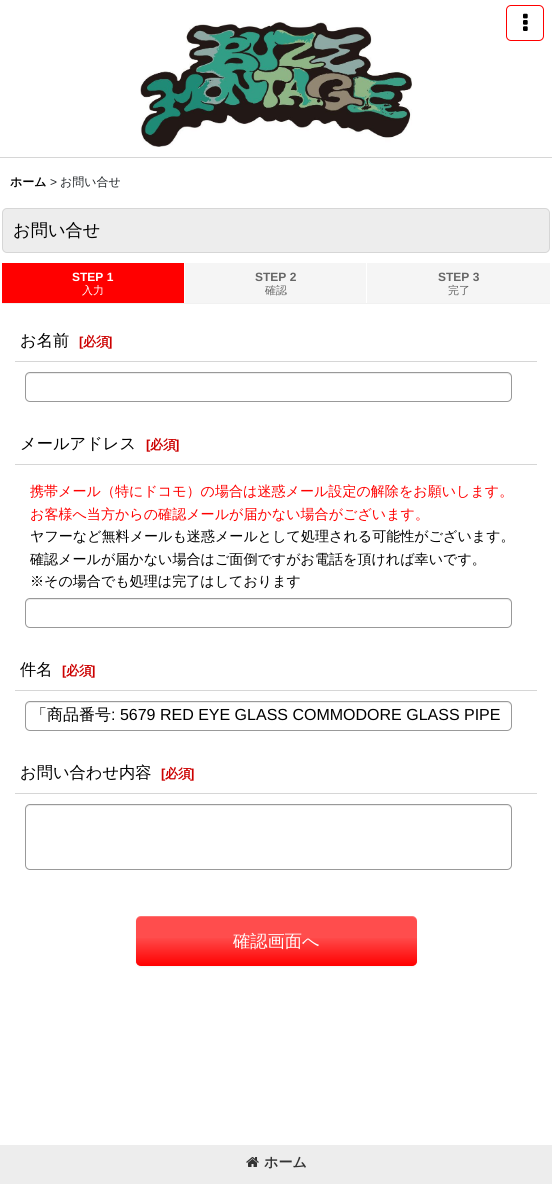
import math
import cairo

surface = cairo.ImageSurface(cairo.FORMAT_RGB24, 552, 1184)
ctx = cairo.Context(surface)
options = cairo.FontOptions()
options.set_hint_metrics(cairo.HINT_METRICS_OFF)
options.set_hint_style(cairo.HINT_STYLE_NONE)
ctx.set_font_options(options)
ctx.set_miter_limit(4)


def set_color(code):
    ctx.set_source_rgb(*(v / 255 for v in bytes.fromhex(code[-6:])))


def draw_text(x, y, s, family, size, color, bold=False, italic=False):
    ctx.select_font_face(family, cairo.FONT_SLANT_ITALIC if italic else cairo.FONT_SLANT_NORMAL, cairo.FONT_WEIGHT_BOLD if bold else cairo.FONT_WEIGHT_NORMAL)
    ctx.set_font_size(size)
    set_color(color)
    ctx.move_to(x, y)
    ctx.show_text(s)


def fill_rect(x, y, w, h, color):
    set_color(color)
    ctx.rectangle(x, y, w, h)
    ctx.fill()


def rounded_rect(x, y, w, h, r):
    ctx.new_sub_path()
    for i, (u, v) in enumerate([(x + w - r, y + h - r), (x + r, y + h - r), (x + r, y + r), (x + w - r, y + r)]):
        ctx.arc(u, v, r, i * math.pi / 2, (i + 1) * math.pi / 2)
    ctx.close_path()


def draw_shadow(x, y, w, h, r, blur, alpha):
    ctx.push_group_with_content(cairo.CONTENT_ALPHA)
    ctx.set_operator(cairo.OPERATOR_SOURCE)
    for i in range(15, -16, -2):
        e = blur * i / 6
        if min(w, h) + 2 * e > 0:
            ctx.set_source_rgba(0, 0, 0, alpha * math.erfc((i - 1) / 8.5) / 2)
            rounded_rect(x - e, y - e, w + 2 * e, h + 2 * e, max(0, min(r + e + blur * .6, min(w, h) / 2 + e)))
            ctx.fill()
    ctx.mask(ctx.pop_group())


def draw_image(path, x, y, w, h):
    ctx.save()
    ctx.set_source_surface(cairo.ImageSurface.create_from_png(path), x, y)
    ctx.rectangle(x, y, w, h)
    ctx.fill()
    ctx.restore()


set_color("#ffffff")
ctx.paint()
fill_rect(0, 157, 552, 1, "#d6d6d6")
draw_image("assets/img1.png", 140, 22, 272, 125)
rounded_rect(506.5, 5.5, 37, 35, 4.5)
set_color("#ff0000")
ctx.set_line_width(1)
ctx.stroke()
draw_image("assets/img2.png", 523, 13, 5, 18)
draw_text(10, 186, "ホーム", "WenQuanYi Zen Hei", 12, "#000000", bold=True)
draw_text(50, 186, ">", "Liberation Sans", 12, "#212529")
draw_text(60, 186, "お問い合せ", "WenQuanYi Zen Hei Medium", 12, "#212529")
set_color("#ededed")
rounded_rect(2.5, 208.5, 547, 44, 4.5)
ctx.fill_preserve()
set_color("#d6d6d6")
ctx.stroke()
draw_text(13, 236, "お問い合せ", "WenQuanYi Zen Hei Medium", 17.25, "#000000")
fill_rect(2, 263, 182, 40, "#ff0000")
fill_rect(2, 303, 548, 1, "#f1f1f1")
draw_text(72, 281, "STEP 1", "Liberation Sans", 12, "#ffffff", bold=True)
draw_text(82, 294, "入力", "WenQuanYi Zen Hei Medium", 11, "#ffffff")
fill_rect(185, 263, 181, 40, "#f5f5f5")
draw_text(255, 281, "STEP 2", "Liberation Sans", 12, "#666666", bold=True)
draw_text(265, 294, "確認", "WenQuanYi Zen Hei Medium", 11, "#666666")
fill_rect(367, 263, 183, 40, "#f5f5f5")
draw_text(438, 281, "STEP 3", "Liberation Sans", 12, "#666666", bold=True)
draw_text(448, 294, "完了", "WenQuanYi Zen Hei Medium", 11, "#666666")
fill_rect(15, 361, 522, 1, "#d6d6d6")
draw_text(20, 346, "お名前", "WenQuanYi Zen Hei Medium", 16.25, "#000000")
draw_text(79, 346, "[", "Liberation Sans", 13, "#cc0000", bold=True)
draw_text(83, 346, "必須", "WenQuanYi Zen Hei", 13, "#cc0000", bold=True)
draw_text(108, 346, "]", "Liberation Sans", 13, "#cc0000", bold=True)
set_color("#ececec")
ctx.new_path()
ctx.move_to(30, 374)
ctx.line_to(507, 374)
ctx.curve_to(509, 374, 511, 376, 511, 378)
ctx.curve_to(511, 375, 510, 373, 507, 373)
ctx.line_to(30, 373)
ctx.curve_to(27, 373, 26, 375, 26, 378)
ctx.curve_to(26, 376, 28, 374, 30, 374)
ctx.close_path()
ctx.fill()
rounded_rect(25.5, 372.5, 486, 29, 4.5)
set_color("#999999")
ctx.stroke()
fill_rect(15, 464, 522, 1, "#d6d6d6")
draw_text(20, 449, "メールアドレス", "WenQuanYi Zen Hei Medium", 16.25, "#000000")
draw_text(146, 449, "[", "Liberation Sans", 13, "#cc0000", bold=True)
draw_text(150, 449, "必須", "WenQuanYi Zen Hei", 13, "#cc0000", bold=True)
draw_text(175, 449, "]", "Liberation Sans", 13, "#cc0000", bold=True)
draw_text(30, 496, "携帯メール（特にドコモ）の場合は迷惑メール設定の解除をお願いします。", "WenQuanYi Zen Hei Medium", 14.05, "#ff0000")
draw_text(30, 519, "お客様へ当方からの確認メールが届かない場合がございます。", "WenQuanYi Zen Hei Medium", 14.05, "#ff0000")
draw_text(30, 541, "ヤフーなど無料メールも迷惑メールとして処理される可能性がございます。", "WenQuanYi Zen Hei Medium", 14.05, "#000000")
draw_text(30, 564, "確認メールが届かない場合はご面倒ですがお電話を頂ければ幸いです。", "WenQuanYi Zen Hei Medium", 14.05, "#000000")
draw_text(30, 586, "※その場合でも処理は完了はしております", "WenQuanYi Zen Hei Medium", 14.05, "#000000")
set_color("#ececec")
ctx.new_path()
ctx.move_to(30, 600)
ctx.line_to(507, 600)
ctx.curve_to(509, 600, 511, 602, 511, 604)
ctx.curve_to(511, 601, 510, 599, 507, 599)
ctx.line_to(30, 599)
ctx.curve_to(27, 599, 26, 601, 26, 604)
ctx.curve_to(26, 602, 28, 600, 30, 600)
ctx.close_path()
ctx.fill()
rounded_rect(25.5, 598.5, 486, 29, 4.5)
set_color("#999999")
ctx.stroke()
fill_rect(15, 690, 522, 1, "#d6d6d6")
draw_text(20, 675, "件名", "WenQuanYi Zen Hei Medium", 16.25, "#000000")
draw_text(62, 675, "[", "Liberation Sans", 13, "#cc0000", bold=True)
draw_text(66, 675, "必須", "WenQuanYi Zen Hei", 13, "#cc0000", bold=True)
draw_text(91, 675, "]", "Liberation Sans", 13, "#cc0000", bold=True)
set_color("#ececec")
ctx.new_path()
ctx.move_to(30, 703)
ctx.line_to(507, 703)
ctx.curve_to(509, 703, 511, 705, 511, 707)
ctx.curve_to(511, 704, 510, 702, 507, 702)
ctx.line_to(30, 702)
ctx.curve_to(27, 702, 26, 704, 26, 707)
ctx.curve_to(26, 705, 28, 703, 30, 703)
ctx.close_path()
ctx.fill()
rounded_rect(25.5, 701.5, 486, 29, 4.5)
set_color("#999999")
ctx.stroke()
draw_text(31, 720, "「商品番号", "WenQuanYi Zen Hei Medium", 16, "#000000")
draw_text(111, 720, ": 5679 RED EYE GLASS COMMODORE GLASS PIPE", "Liberation Sans", 16, "#000000")
fill_rect(15, 793, 522, 1, "#d6d6d6")
draw_text(20, 778, "お問い合わせ内容", "WenQuanYi Zen Hei Medium", 16.25, "#000000")
draw_text(161, 778, "[", "Liberation Sans", 13, "#cc0000", bold=True)
draw_text(165, 778, "必須", "WenQuanYi Zen Hei", 13, "#cc0000", bold=True)
draw_text(190, 778, "]", "Liberation Sans", 13, "#cc0000", bold=True)
set_color("#ececec")
ctx.new_path()
ctx.move_to(30, 806)
ctx.line_to(507, 806)
ctx.curve_to(509, 806, 511, 808, 511, 810)
ctx.curve_to(511, 807, 510, 805, 507, 805)
ctx.line_to(30, 805)
ctx.curve_to(27, 805, 26, 807, 26, 810)
ctx.curve_to(26, 808, 28, 806, 30, 806)
ctx.close_path()
ctx.fill()
rounded_rect(25.5, 804.5, 486, 65, 4.5)
set_color("#999999")
ctx.stroke()
set_color("#000000")
draw_shadow(136, 917, 281, 50, 5, 1, 0.05)
set_color("#ff4d4d")
rounded_rect(136, 916, 281, 50, 5)
ctx.fill()
draw_image("assets/img3.png", 136, 938, 281, 28)
ctx.set_source_rgba(1, 1, 1, 0.2)
ctx.new_path()
ctx.move_to(141, 917)
ctx.line_to(412, 917)
ctx.curve_to(415, 917, 417, 919, 417, 922)
ctx.line_to(417, 921)
ctx.curve_to(417, 918, 415, 916, 412, 916)
ctx.line_to(141, 916)
ctx.curve_to(138, 916, 136, 918, 136, 921)
ctx.line_to(136, 922)
ctx.curve_to(136, 919, 138, 917, 141, 917)
ctx.close_path()
ctx.fill()
draw_text(233, 947, "確認画面へ", "WenQuanYi Zen Hei Medium", 17.25, "#ffffff")
fill_rect(0, 1145, 552, 39, "#ededed")
draw_image("assets/img4.png", 246, 1157, 13, 10)
draw_text(264, 1167, "ホーム", "WenQuanYi Zen Hei", 14.05, "#333333", bold=True)
surface.write_to_png("output.png")
